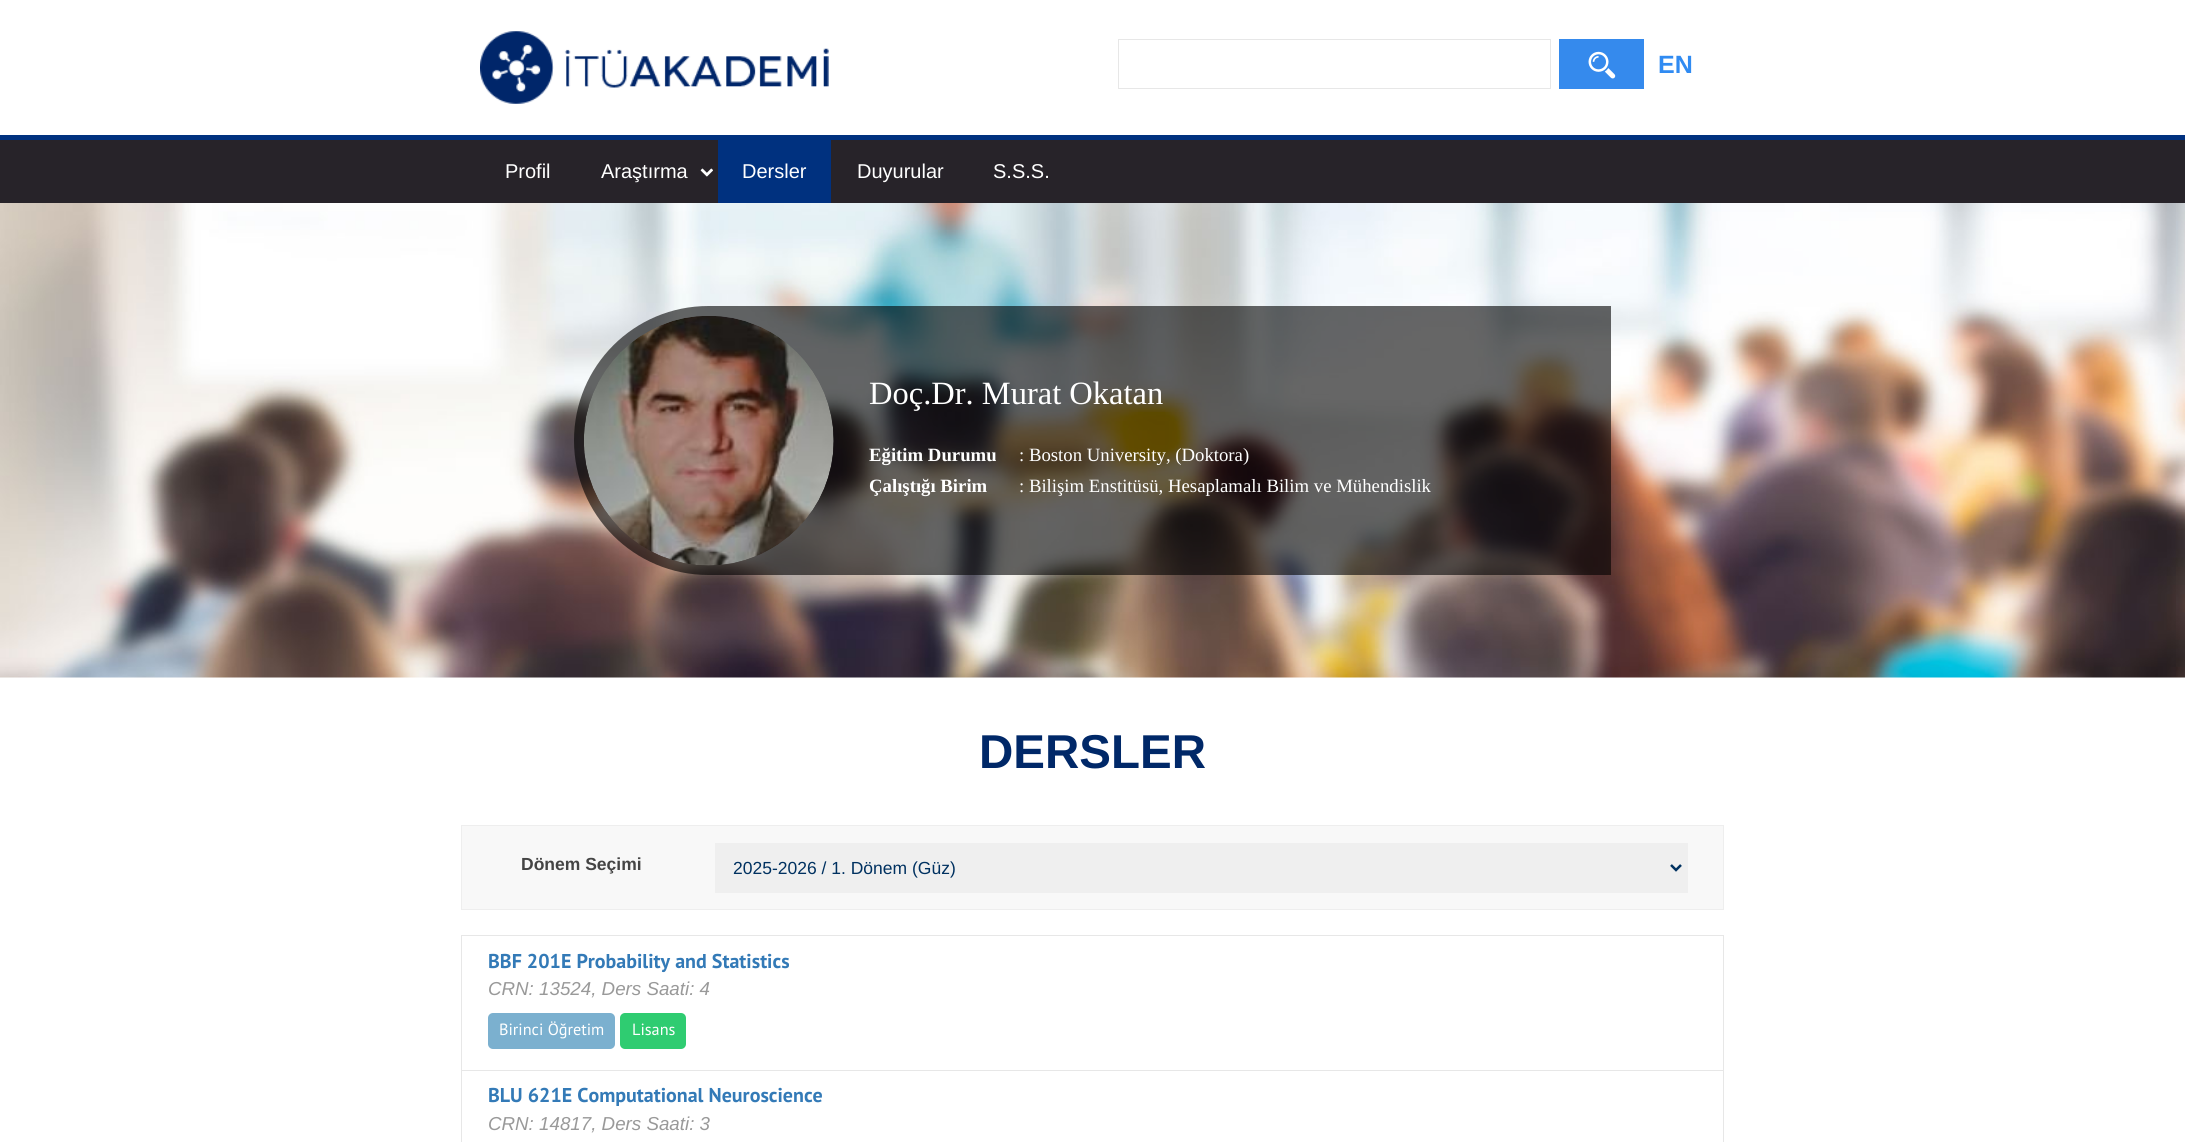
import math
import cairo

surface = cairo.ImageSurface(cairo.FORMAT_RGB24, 2185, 1142)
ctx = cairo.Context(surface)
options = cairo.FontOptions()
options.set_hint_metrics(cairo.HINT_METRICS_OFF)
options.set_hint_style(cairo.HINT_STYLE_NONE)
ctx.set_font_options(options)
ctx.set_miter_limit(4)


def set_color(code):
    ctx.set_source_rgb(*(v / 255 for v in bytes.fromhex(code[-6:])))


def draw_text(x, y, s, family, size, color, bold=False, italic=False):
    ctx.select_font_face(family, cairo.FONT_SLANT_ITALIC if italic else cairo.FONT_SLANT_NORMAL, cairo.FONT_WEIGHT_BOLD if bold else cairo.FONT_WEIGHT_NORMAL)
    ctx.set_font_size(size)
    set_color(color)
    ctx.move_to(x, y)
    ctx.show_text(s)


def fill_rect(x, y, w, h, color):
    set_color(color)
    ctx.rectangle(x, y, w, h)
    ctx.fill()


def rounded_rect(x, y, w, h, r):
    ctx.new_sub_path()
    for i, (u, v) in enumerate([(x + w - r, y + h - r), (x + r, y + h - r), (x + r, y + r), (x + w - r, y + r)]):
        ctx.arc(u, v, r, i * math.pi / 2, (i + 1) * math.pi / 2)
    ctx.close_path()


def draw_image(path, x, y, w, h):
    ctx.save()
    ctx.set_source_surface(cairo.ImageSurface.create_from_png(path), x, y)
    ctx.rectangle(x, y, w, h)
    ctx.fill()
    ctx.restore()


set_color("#ffffff")
ctx.paint()
draw_image("assets/img1.png", 480, 31, 349, 73)
ctx.rectangle(1118.5, 39.5, 432, 49)
set_color("#e7e7e7")
ctx.set_line_width(1)
ctx.stroke()
fill_rect(1559, 39, 85, 50, "#358aed")
draw_image("assets/img2.png", 1588, 51, 28, 28)
draw_text(1658, 73, "EN", "Liberation Sans", 25, "#308bf2", bold=True)
fill_rect(0, 140, 2185, 63, "#272329")
fill_rect(0, 135, 2185, 5, "#00317f")
draw_text(505, 178, "Profil", "Liberation Sans", 20, "#ffffff")
draw_text(601, 178, "Araştırma", "Liberation Sans", 20, "#ffffff")
draw_image("assets/img3.png", 700, 168, 13, 9)
fill_rect(718, 140, 113, 63, "#00317f")
draw_text(742, 178, "Dersler", "Liberation Sans", 20, "#ffffff")
draw_text(857, 178, "Duyurular", "Liberation Sans", 20, "#ffffff")
draw_text(993, 178, "S.S.S.", "Liberation Sans", 20, "#ffffff")
draw_image("assets/img4.png", 0, 203, 2185, 475)
ctx.set_source_rgba(0, 0, 0, 0.6)
ctx.new_path()
ctx.move_to(708.5, 306)
ctx.line_to(1611, 306)
ctx.line_to(1611, 575)
ctx.line_to(708.5, 575)
ctx.curve_to(634, 575, 574, 515, 574, 440.5)
ctx.curve_to(574, 366, 634, 306, 708.5, 306)
ctx.close_path()
ctx.fill()
draw_image("assets/img5.png", 584, 316, 250, 250)
draw_text(869, 404, "Doç.Dr. Murat Okatan", "Liberation Serif", 32.5, "#ffffff")
draw_text(869, 461, "Eğitim Durumu", "Liberation Serif", 18.75, "#ffffff", bold=True)
draw_text(1019, 461, ": Boston University, (Doktora)", "Liberation Serif", 18.75, "#ffffff")
draw_text(869, 492, "Çalıştığı Birim", "Liberation Serif", 18.75, "#ffffff", bold=True)
draw_text(1019, 492, ": Bilişim Enstitüsü, Hesaplamalı Bilim ve Mühendislik", "Liberation Serif", 18.75, "#ffffff")
draw_text(979, 768, "DERSLER", "Liberation Sans", 47.5, "#002868", bold=True)
set_color("#f8f8f8")
ctx.rectangle(461.5, 825.5, 1262, 84)
ctx.fill_preserve()
set_color("#eeeeee")
ctx.stroke()
draw_text(521, 870, "Dönem Seçimi", "Liberation Sans", 17.5, "#444444", bold=True)
fill_rect(715, 843, 973, 50, "#efefef")
ctx.new_path()
ctx.move_to(1671, 865)
ctx.line_to(1676, 870)
ctx.line_to(1681, 865)
set_color("#003160")
ctx.set_line_width(2.5)
ctx.stroke()
draw_text(733, 874, "2025-2026 / 1. Dönem (Güz)", "Liberation Sans", 17.5, "#003160")
fill_rect(461, 935, 1263, 1, "#e7e7e7")
fill_rect(461, 1070, 1263, 1, "#e7e7e7")
fill_rect(1723, 1070, 1, 72, "#e7e7e7")
fill_rect(1723, 935, 1, 136, "#e7e7e7")
fill_rect(461, 1070, 1, 72, "#e7e7e7")
fill_rect(461, 935, 1, 136, "#e7e7e7")
draw_text(488, 968, "BBF 201E Probability and Statistics", "PT Sans", 20, "#337ab7", bold=True)
draw_text(488, 995, "CRN: 13524, Ders Saati: 4", "Liberation Sans", 18.75, "#999999", italic=True)
set_color("#7bb0cf")
rounded_rect(488, 1013, 127, 36, 5)
ctx.fill()
draw_text(499, 1035, "Birinci Öğretim", "PT Sans", 16.25, "#ffffff")
set_color("#2fcc71")
rounded_rect(620, 1013, 66, 36, 5)
ctx.fill()
draw_text(632, 1035, "Lisans", "PT Sans", 16.25, "#ffffff")
draw_text(488, 1102, "BLU 621E Computational Neuroscience", "PT Sans", 20, "#337ab7", bold=True)
draw_text(488, 1130, "CRN: 14817, Ders Saati: 3", "Liberation Sans", 18.75, "#999999", italic=True)
surface.write_to_png("output.png")
